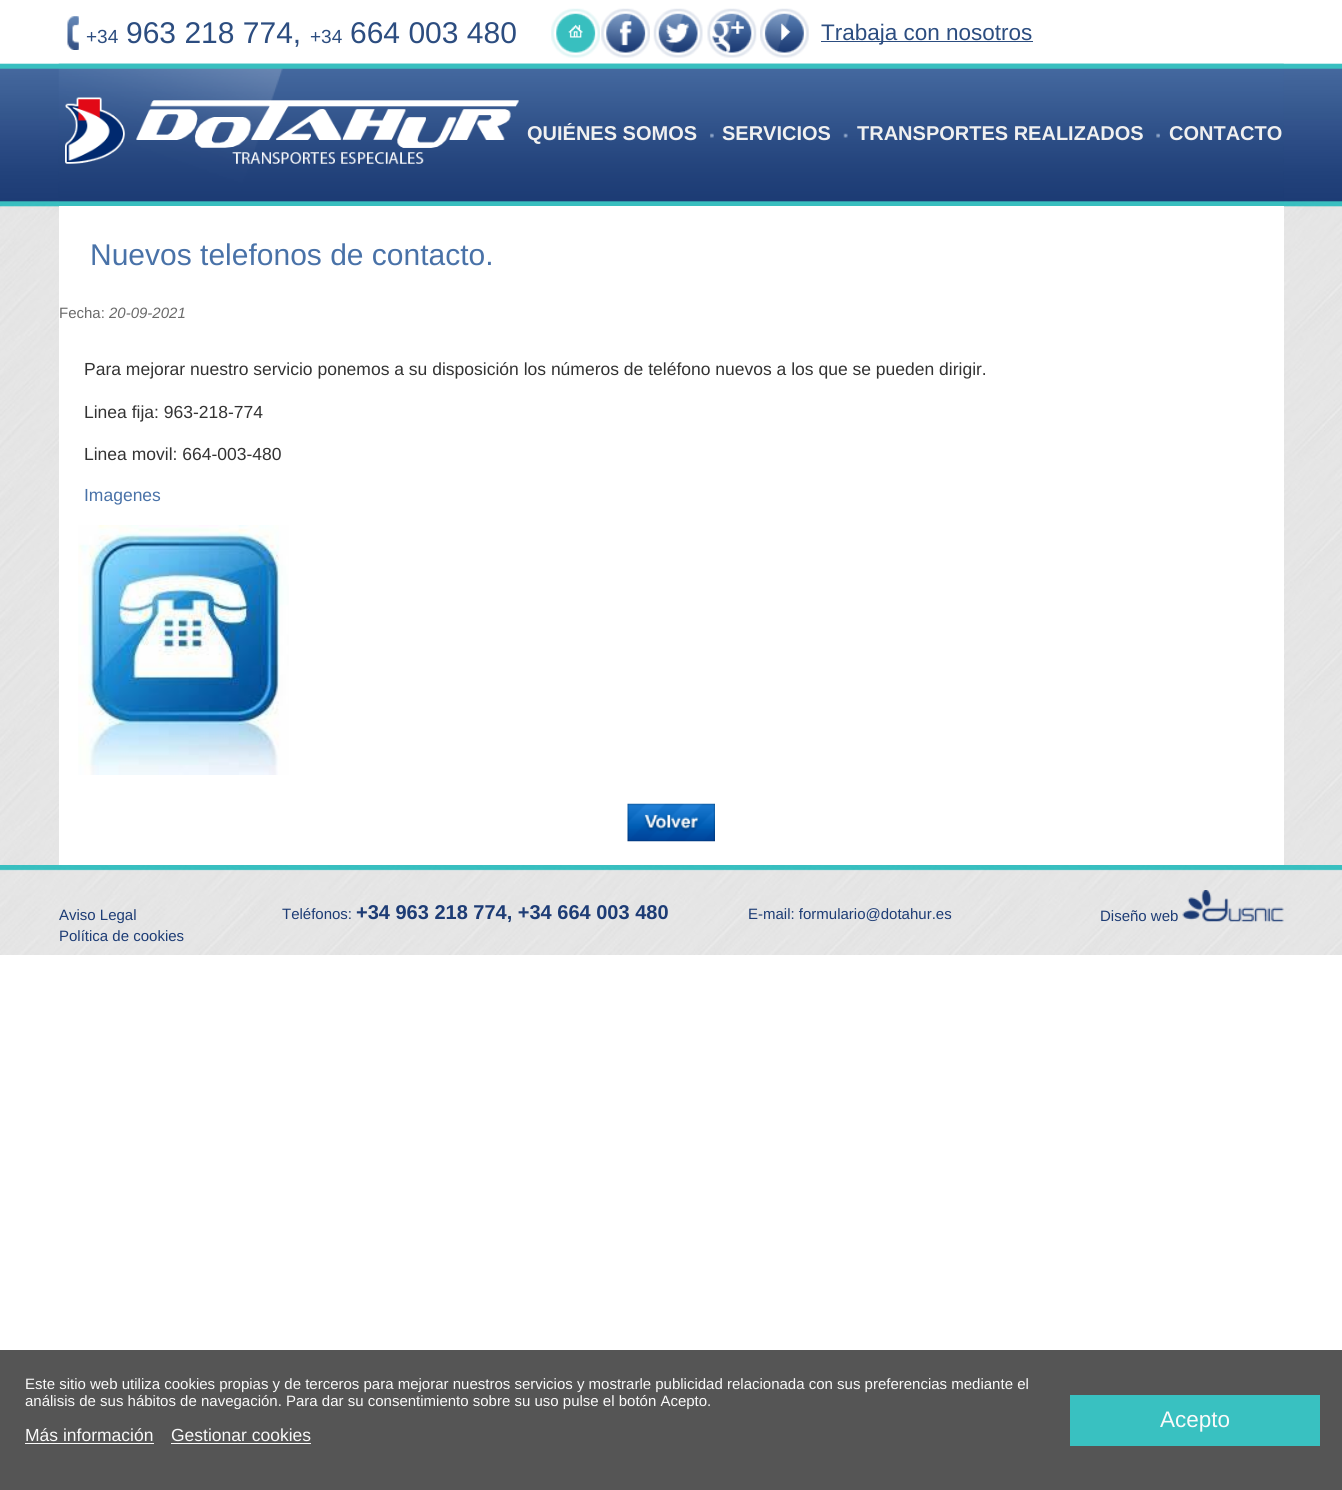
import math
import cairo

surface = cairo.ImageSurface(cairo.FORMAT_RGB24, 1342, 1490)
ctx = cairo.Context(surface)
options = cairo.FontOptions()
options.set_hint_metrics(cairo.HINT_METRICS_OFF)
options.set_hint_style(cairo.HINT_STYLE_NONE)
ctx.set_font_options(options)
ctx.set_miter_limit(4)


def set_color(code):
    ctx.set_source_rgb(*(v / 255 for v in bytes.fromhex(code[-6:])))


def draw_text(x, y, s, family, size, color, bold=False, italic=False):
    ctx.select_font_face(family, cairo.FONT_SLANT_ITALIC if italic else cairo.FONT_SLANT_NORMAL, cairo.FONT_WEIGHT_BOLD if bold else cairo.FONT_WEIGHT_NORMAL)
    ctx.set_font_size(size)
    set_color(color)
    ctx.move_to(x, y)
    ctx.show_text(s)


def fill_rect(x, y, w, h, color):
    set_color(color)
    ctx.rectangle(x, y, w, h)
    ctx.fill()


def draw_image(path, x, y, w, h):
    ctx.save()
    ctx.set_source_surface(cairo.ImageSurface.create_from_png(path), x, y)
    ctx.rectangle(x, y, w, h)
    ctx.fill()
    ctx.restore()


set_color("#ffffff")
ctx.paint()
draw_image("assets/img1.png", 0, 63, 1342, 802)
draw_image("assets/img2.png", 58, 63, 1226, 144)
draw_image("assets/img3.png", 67, 16, 12, 34)
draw_text(86, 43, "+34", "Liberation Sans", 19, "#2c4d80")
draw_text(126, 43, "963 218 774,", "Liberation Sans", 30, "#2c4d80")
draw_text(310, 43, "+34", "Liberation Sans", 19, "#2c4d80")
draw_text(350, 43, "664 003 480", "Liberation Sans", 30, "#2c4d80")
draw_image("assets/img4.png", 551, 8, 49, 50)
draw_image("assets/img5.png", 601, 8, 49, 50)
draw_image("assets/img6.png", 653, 8, 50, 50)
draw_image("assets/img7.png", 707, 8, 50, 50)
draw_image("assets/img8.png", 760, 8, 49, 50)
fill_rect(821, 41, 212, 1, "#2c4d80")
draw_text(821, 40, "Trabaja con nosotros", "Liberation Sans", 22.5, "#2c4d80")
draw_image("assets/img9.png", 65, 97, 454, 67)
ctx.save()
ctx.rectangle(503, 123, 812, 22)
ctx.clip()
draw_text(527, 140, "QUIÉNES SOMOS", "Liberation Sans", 20, "#f0f0f0", bold=True)
ctx.restore()
draw_image("assets/img10.png", 710, 133, 4, 5)
draw_text(722, 140, "SERVICIOS", "Liberation Sans", 20, "#f0f0f0", bold=True)
draw_image("assets/img11.png", 843, 133, 5, 5)
draw_text(857, 140, "TRANSPORTES REALIZADOS", "Liberation Sans", 20, "#f0f0f0", bold=True)
draw_image("assets/img12.png", 1156, 133, 4, 5)
draw_text(1169, 140, "CONTACTO", "Liberation Sans", 20, "#f0f0f0", bold=True)
fill_rect(59, 206, 1225, 659, "#ffffff")
draw_text(90, 265, "Nuevos telefonos de contacto.", "Liberation Sans", 30, "#4972a8")
draw_text(59, 318, "Fecha:", "Liberation Sans", 15, "#6a6a6a")
draw_text(109, 318, "20-09-2021", "Liberation Sans", 15, "#6a6a6a", italic=True)
draw_text(84, 375, "Para mejorar nuestro servicio ponemos a su disposición los números de teléfono nuevos a los que se pueden dirigir.", "Liberation Sans", 17.5, "#333333")
draw_text(84, 418, "Linea fija: 963-218-774", "Liberation Sans", 17.5, "#333333")
draw_text(84, 460, "Linea movil: 664-003-480", "Liberation Sans", 17.5, "#333333")
draw_text(84, 501, "Imagenes", "Liberation Sans", 17.5, "#4972a8")
draw_image("assets/img13.png", 78, 525, 211, 250)
draw_image("assets/img14.png", 627, 803, 88, 39)
draw_image("assets/img15.png", 0, 865, 1342, 90)
draw_text(59, 920, "Aviso Legal", "Liberation Sans", 15, "#1d3c75")
draw_text(282, 919, "Teléfonos:", "Liberation Sans", 15, "#1d3c75")
draw_text(356, 919, "+34 963 218 774, +34 664 003 480", "Liberation Sans", 20, "#1d3c75", bold=True)
draw_text(748, 919, "E-mail: formulario@dotahur.es", "Liberation Sans", 15, "#1d3c75")
draw_text(1100, 921, "Diseño web", "Liberation Sans", 15, "#1d3c75")
draw_image("assets/img16.png", 1182, 890, 102, 32)
draw_text(59, 941, "Política de cookies", "Liberation Sans", 15, "#1d3c75")
fill_rect(0, 1350, 1342, 140, "#555555")
draw_text(25, 1389, "Este sitio web utiliza cookies propias y de terceros para mejorar nuestros servicios y mostrarle publicidad relacionada con sus preferencias mediante el", "Liberation Sans", 15, "#fafafa")
draw_text(25, 1406, "análisis de sus hábitos de navegación. Para dar su consentimiento sobre su uso pulse el botón Acepto.", "Liberation Sans", 15, "#fafafa")
draw_text(25, 1441, "Más información", "Liberation Sans", 17.5, "#fafafa")
fill_rect(25, 1443, 129, 1, "#fafafa")
draw_text(171, 1441, "Gestionar cookies", "Liberation Sans", 17.5, "#fafafa")
fill_rect(171, 1443, 140, 1, "#fafafa")
fill_rect(1070, 1395, 250, 51, "#39c1c1")
draw_text(1160, 1427, "Acepto", "Liberation Sans", 22.5, "#fafafa")
surface.write_to_png("output.png")
